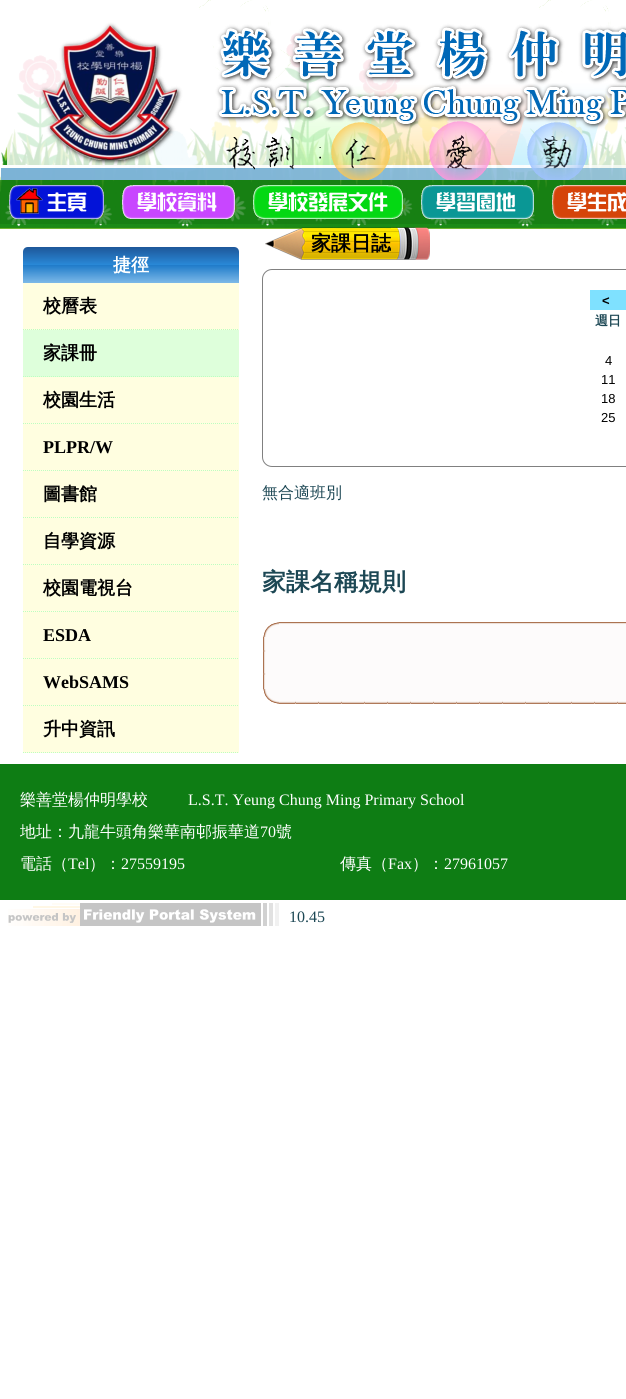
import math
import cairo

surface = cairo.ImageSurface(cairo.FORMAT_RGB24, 626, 1399)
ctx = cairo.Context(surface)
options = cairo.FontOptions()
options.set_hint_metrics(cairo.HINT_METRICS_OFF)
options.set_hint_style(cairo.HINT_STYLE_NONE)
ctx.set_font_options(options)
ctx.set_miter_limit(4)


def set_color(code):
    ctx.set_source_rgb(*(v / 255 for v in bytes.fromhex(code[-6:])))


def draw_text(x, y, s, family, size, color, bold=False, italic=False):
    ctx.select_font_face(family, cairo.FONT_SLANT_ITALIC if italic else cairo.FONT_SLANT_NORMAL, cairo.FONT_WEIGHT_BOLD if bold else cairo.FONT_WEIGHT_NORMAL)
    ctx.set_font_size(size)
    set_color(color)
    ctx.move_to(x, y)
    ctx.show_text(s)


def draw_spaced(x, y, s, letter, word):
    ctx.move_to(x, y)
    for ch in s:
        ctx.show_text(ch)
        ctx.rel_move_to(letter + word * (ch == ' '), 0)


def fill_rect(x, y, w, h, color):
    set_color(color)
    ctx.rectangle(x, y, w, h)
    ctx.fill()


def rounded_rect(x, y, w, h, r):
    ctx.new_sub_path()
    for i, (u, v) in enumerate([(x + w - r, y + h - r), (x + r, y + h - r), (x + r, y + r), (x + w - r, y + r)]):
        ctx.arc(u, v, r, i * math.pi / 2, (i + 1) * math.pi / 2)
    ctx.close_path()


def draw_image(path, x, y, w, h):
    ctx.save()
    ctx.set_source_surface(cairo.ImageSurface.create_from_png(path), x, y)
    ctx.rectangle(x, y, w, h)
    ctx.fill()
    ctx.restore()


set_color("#ffffff")
ctx.paint()
draw_image("assets/img1.png", 0, 0, 626, 229)
draw_image("assets/img2.png", 1, 20, 625, 160)
ctx.set_source_rgba(0.09, 0.486, 0.071, 0.78)
ctx.rectangle(0, 180, 626, 44)
ctx.fill()
draw_image("assets/img3.png", 9, 185, 95, 34)
draw_image("assets/img4.png", 122, 185, 113, 34)
draw_image("assets/img5.png", 253, 185, 150, 34)
draw_image("assets/img6.png", 421, 185, 113, 34)
draw_image("assets/img7.png", 552, 185, 74, 34)
gradient = cairo.LinearGradient(131, 247, 131, 283)
gradient.add_color_stop_rgba(0, 0.118, 0.341, 0.6, 1)
gradient.add_color_stop_rgba(0.5, 0.161, 0.537, 0.847, 1)
gradient.add_color_stop_rgba(0.51, 0.125, 0.486, 0.792, 1)
gradient.add_color_stop_rgba(1, 0.49, 0.725, 0.91, 1)
ctx.set_source(gradient)
ctx.new_path()
ctx.move_to(28, 247)
ctx.line_to(234, 247)
ctx.curve_to(237, 247, 239, 249, 239, 252)
ctx.line_to(239, 283)
ctx.line_to(23, 283)
ctx.line_to(23, 252)
ctx.curve_to(23, 249, 25, 247, 28, 247)
ctx.close_path()
ctx.fill()
draw_text(113, 271, "捷徑", "WenQuanYi Zen Hei", 18, "#ffffff", bold=True)
fill_rect(23, 283, 216, 47, "#fffee0")
ctx.new_path()
ctx.move_to(23, 329.5)
ctx.line_to(239, 329.5)
set_color("#bdffc1")
ctx.set_line_width(1)
ctx.set_dash([1, 1])
ctx.stroke()
draw_text(43, 312, "校曆表", "WenQuanYi Zen Hei", 18, "#000000", bold=True)
fill_rect(23, 330, 216, 47, "#deffdb")
ctx.new_path()
ctx.move_to(23, 376.5)
ctx.line_to(239, 376.5)
set_color("#bdffc1")
ctx.stroke()
draw_text(43, 359, "家課冊", "WenQuanYi Zen Hei", 18, "#000000", bold=True)
fill_rect(23, 377, 216, 376, "#fffee0")
ctx.new_path()
ctx.move_to(23, 423.5)
ctx.line_to(239, 423.5)
set_color("#bdffc1")
ctx.stroke()
draw_text(43, 406, "校園生活", "WenQuanYi Zen Hei", 18, "#000000", bold=True)
ctx.new_path()
ctx.move_to(23, 470.5)
ctx.line_to(239, 470.5)
set_color("#bdffc1")
ctx.stroke()
draw_text(43, 453, "PLPR/W", "Liberation Serif", 18, "#000000", bold=True)
ctx.new_path()
ctx.move_to(23, 517.5)
ctx.line_to(239, 517.5)
set_color("#bdffc1")
ctx.stroke()
draw_text(43, 500, "圖書館", "WenQuanYi Zen Hei", 18, "#000000", bold=True)
ctx.new_path()
ctx.move_to(23, 564.5)
ctx.line_to(239, 564.5)
set_color("#bdffc1")
ctx.stroke()
draw_text(43, 547, "自學資源", "WenQuanYi Zen Hei", 18, "#000000", bold=True)
ctx.new_path()
ctx.move_to(23, 611.5)
ctx.line_to(239, 611.5)
set_color("#bdffc1")
ctx.stroke()
draw_text(43, 594, "校園電視台", "WenQuanYi Zen Hei", 18, "#000000", bold=True)
ctx.new_path()
ctx.move_to(23, 658.5)
ctx.line_to(239, 658.5)
set_color("#bdffc1")
ctx.stroke()
draw_text(43, 641, "ESDA", "Liberation Serif", 18, "#000000", bold=True)
ctx.new_path()
ctx.move_to(23, 705.5)
ctx.line_to(239, 705.5)
set_color("#bdffc1")
ctx.stroke()
draw_text(43, 688, "WebSAMS", "Liberation Serif", 18, "#000000", bold=True)
ctx.new_path()
ctx.move_to(23, 752.5)
ctx.line_to(239, 752.5)
set_color("#bdffc1")
ctx.stroke()
draw_text(43, 735, "升中資訊", "WenQuanYi Zen Hei", 18, "#000000", bold=True)
draw_image("assets/img8.png", 265, 227, 46, 33)
draw_image("assets/img9.png", 311, 227, 80, 33)
draw_text(311, 250, "家課日誌", "WenQuanYi Zen Hei", 20, "#000000", bold=True)
draw_image("assets/img10.png", 391, 227, 39, 33)
rounded_rect(262.5, 269.5, 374, 197, 9.5)
set_color("#808080")
ctx.set_dash([])
ctx.stroke()
fill_rect(590, 290, 36, 20, "#7fe1ff")
ctx.select_font_face("Liberation Sans", cairo.FONT_SLANT_NORMAL, cairo.FONT_WEIGHT_BOLD)
ctx.set_font_size(13)
set_color("#000000")
draw_spaced(602, 305, "<", 7, 0)
draw_text(595, 325, "週日", "WenQuanYi Zen Hei", 13, "#1c4754", bold=True)
draw_text(605, 365, "4", "Liberation Sans", 13, "#000000")
draw_text(601, 384, "11", "Liberation Sans", 13, "#000000")
draw_text(601, 403, "18", "Liberation Sans", 13, "#000000")
draw_text(601, 422, "25", "Liberation Sans", 13, "#000000")
draw_text(262, 498, "無合適班別", "WenQuanYi Zen Hei Medium", 16, "#1c4754")
draw_text(262, 590, "家課名稱規則", "WenQuanYi Zen Hei", 24, "#1c4754", bold=True)
draw_image("assets/img11.png", 263, 622, 363, 82)
fill_rect(0, 764, 626, 136, "#0e7d14")
draw_text(20, 805, "樂善堂楊仲明學校", "WenQuanYi Zen Hei Medium", 16, "#ffffff")
draw_text(188, 805, "L.S.T. Yeung Chung Ming Primary School", "Liberation Serif", 16, "#ffffff")
draw_text(20, 837, "地址：九龍牛頭角樂華南邨振華道", "WenQuanYi Zen Hei Medium", 16, "#ffffff")
draw_text(260, 837, "70", "Liberation Serif", 16, "#ffffff")
draw_text(276, 837, "號", "WenQuanYi Zen Hei Medium", 16, "#ffffff")
draw_text(20, 869, "電話（", "WenQuanYi Zen Hei Medium", 16, "#ffffff")
draw_text(68, 869, "Tel", "Liberation Serif", 16, "#ffffff")
draw_text(89, 869, "）：", "WenQuanYi Zen Hei Medium", 16, "#ffffff")
draw_text(121, 869, "27559195", "Liberation Serif", 16, "#ffffff")
draw_text(340, 869, "傳真（", "WenQuanYi Zen Hei Medium", 16, "#ffffff")
draw_text(388, 869, "Fax", "Liberation Serif", 16, "#ffffff")
draw_text(412, 869, "）：", "WenQuanYi Zen Hei Medium", 16, "#ffffff")
draw_text(444, 869, "27961057", "Liberation Serif", 16, "#ffffff")
draw_image("assets/img12.png", 8, 903, 271, 23)
draw_text(289, 922, "10.45", "Liberation Serif", 16, "#1c4754")
surface.write_to_png("output.png")
